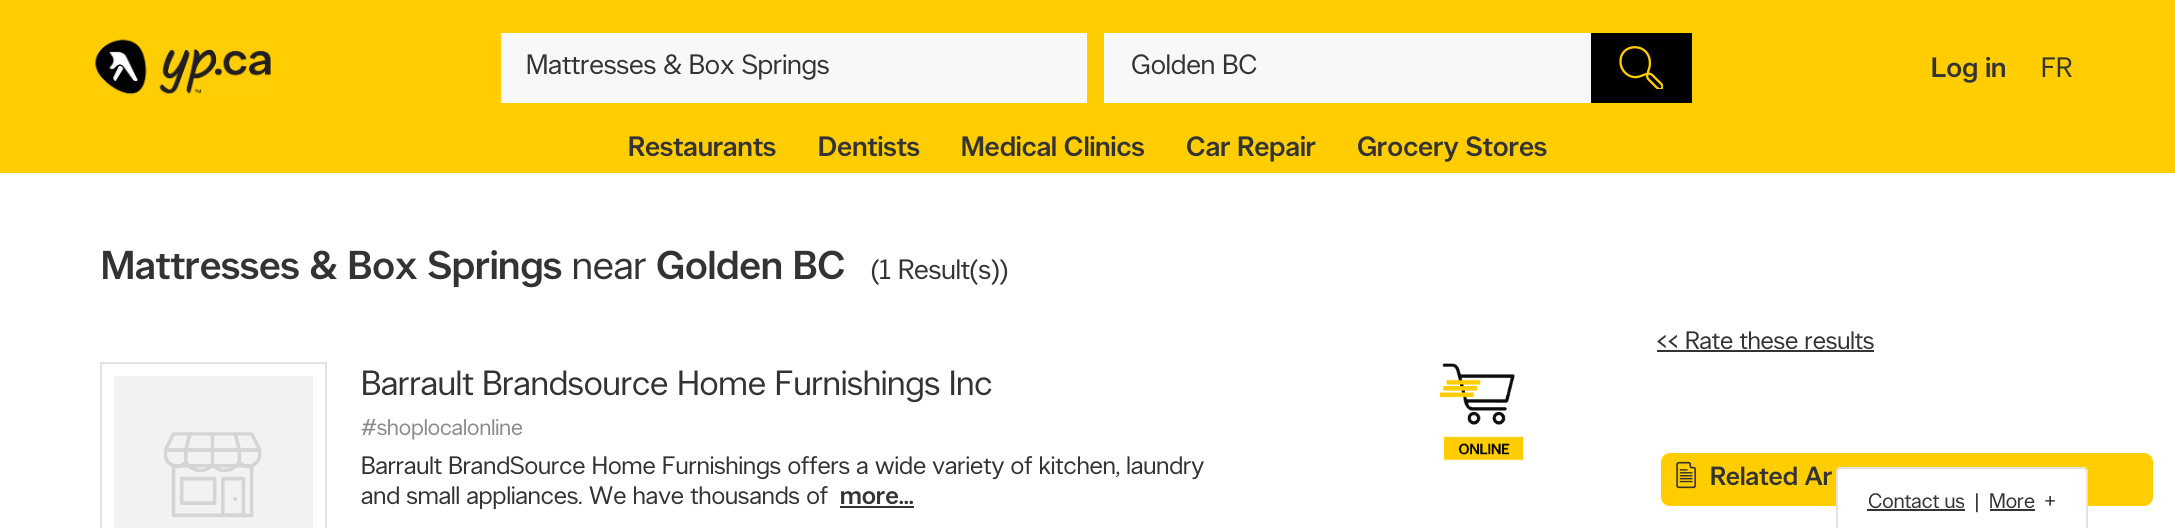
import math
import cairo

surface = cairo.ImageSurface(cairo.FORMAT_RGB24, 2175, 528)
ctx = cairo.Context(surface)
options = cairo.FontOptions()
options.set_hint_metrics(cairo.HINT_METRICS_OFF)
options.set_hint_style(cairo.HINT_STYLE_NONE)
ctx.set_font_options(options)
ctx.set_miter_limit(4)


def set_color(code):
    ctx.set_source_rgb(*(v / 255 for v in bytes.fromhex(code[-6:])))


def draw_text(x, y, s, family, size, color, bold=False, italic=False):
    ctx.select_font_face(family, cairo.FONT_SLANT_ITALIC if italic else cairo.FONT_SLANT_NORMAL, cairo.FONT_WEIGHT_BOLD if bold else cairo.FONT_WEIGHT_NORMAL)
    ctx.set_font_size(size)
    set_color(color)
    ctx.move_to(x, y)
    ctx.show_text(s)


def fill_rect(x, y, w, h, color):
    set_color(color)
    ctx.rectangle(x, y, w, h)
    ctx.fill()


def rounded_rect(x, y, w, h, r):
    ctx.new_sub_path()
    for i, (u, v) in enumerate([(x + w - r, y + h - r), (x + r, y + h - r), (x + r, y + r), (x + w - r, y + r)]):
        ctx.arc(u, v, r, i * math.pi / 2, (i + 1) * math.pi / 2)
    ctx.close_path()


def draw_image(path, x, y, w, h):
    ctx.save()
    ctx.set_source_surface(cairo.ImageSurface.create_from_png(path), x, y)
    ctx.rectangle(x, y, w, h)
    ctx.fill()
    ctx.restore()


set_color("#ffffff")
ctx.paint()
fill_rect(0, 0, 2175, 173, "#ffcd00")
draw_image("assets/img1.png", 95, 39, 177, 56)
fill_rect(501, 33, 586, 70, "#f8f8f8")
draw_text(526, 74, "Mattresses & Box Springs", "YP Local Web", 28, "#333333")
fill_rect(1104, 33, 487, 70, "#f8f8f8")
draw_text(1131, 74, "Golden BC", "YP Local Web", 28, "#333333")
fill_rect(1591, 33, 101, 70, "#000000")
draw_image("assets/img2.png", 1619, 46, 44, 43)
draw_text(1931, 77, "Log in", "YP Local Web Medium", 28, "#333333")
draw_text(2041, 77, "FR", "YP Local Web", 28, "#333333")
draw_text(628, 156, "Restaurants", "YP Local Web Medium", 28, "#333333")
draw_text(818, 156, "Dentists", "YP Local Web Medium", 28, "#333333")
draw_text(961, 156, "Medical Clinics", "YP Local Web Medium", 28, "#333333")
draw_text(1186, 156, "Car Repair", "YP Local Web Medium", 28, "#333333")
draw_text(1357, 156, "Grocery Stores", "YP Local Web Medium", 28, "#333333")
draw_text(101, 279, "Mattresses & Box Springs", "YP Local Web Medium", 40.25, "#333333")
draw_text(572, 279, "near", "YP Local Web", 40.25, "#333333")
draw_text(656, 279, "Golden BC", "YP Local Web Medium", 40.25, "#333333")
draw_text(871, 279, "(1 Result(s))", "YP Local Web", 28, "#333333")
ctx.rectangle(101, 363, 225, 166)
set_color("#e2e2e2")
ctx.stroke()
fill_rect(114, 376, 199, 152, "#f2f2f2")
draw_image("assets/img3.png", 164, 432, 98, 86)
draw_text(361, 395, "Barrault Brandsource Home Furnishings Inc", "YP Local Web", 35, "#333333")
draw_text(361, 435, "#shoplocalonline", "YP Local Web", 22.75, "#8a8a8a")
draw_text(361, 474, "Barrault BrandSource Home Furnishings offers a wide variety of kitchen, laundry", "YP Local Web", 25.2, "#333333")
draw_text(361, 504, "and small appliances. We have thousands of", "YP Local Web", 25.2, "#333333")
draw_text(840, 504, "more...", "YP Local Web Medium", 25.2, "#333333")
fill_rect(840, 506, 74, 2, "#333333")
draw_image("assets/img4.png", 1440, 363, 83, 98)
draw_text(1656, 349, "<< Rate these results", "YP Local Web", 25.2, "#333333")
fill_rect(1657, 350, 217, 2, "#333333")
set_color("#ffcd00")
rounded_rect(1661, 453, 492, 53, 9)
ctx.fill()
draw_image("assets/img5.png", 1676, 461, 20, 28)
draw_text(1710, 485, "Related Ar", "YP Local Web Medium", 26.25, "#333333")
set_color("#ffffff")
ctx.new_path()
ctx.move_to(1840, 469)
ctx.line_to(2084, 469)
ctx.curve_to(2085, 469, 2086, 470, 2086, 471)
ctx.line_to(2086, 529)
ctx.line_to(1838, 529)
ctx.line_to(1838, 471)
ctx.curve_to(1838, 470, 1839, 469, 1840, 469)
ctx.close_path()
ctx.fill()
fill_rect(1838, 467, 248, 2, "#e2e2e2")
fill_rect(2086, 469, 2, 59, "#e2e2e2")
fill_rect(1836, 469, 2, 59, "#e2e2e2")
draw_text(1868, 508, "Contact us", "YP Local Web", 21, "#333333")
fill_rect(1867, 509, 98, 2, "#333333")
draw_text(1975, 508, "|", "YP Local Web", 21, "#333333")
draw_text(1989, 508, "More", "YP Local Web", 21, "#333333")
fill_rect(1990, 509, 45, 2, "#333333")
draw_text(2044, 508, "+", "YP Local Web", 21, "#333333")
surface.write_to_png("output.png")
